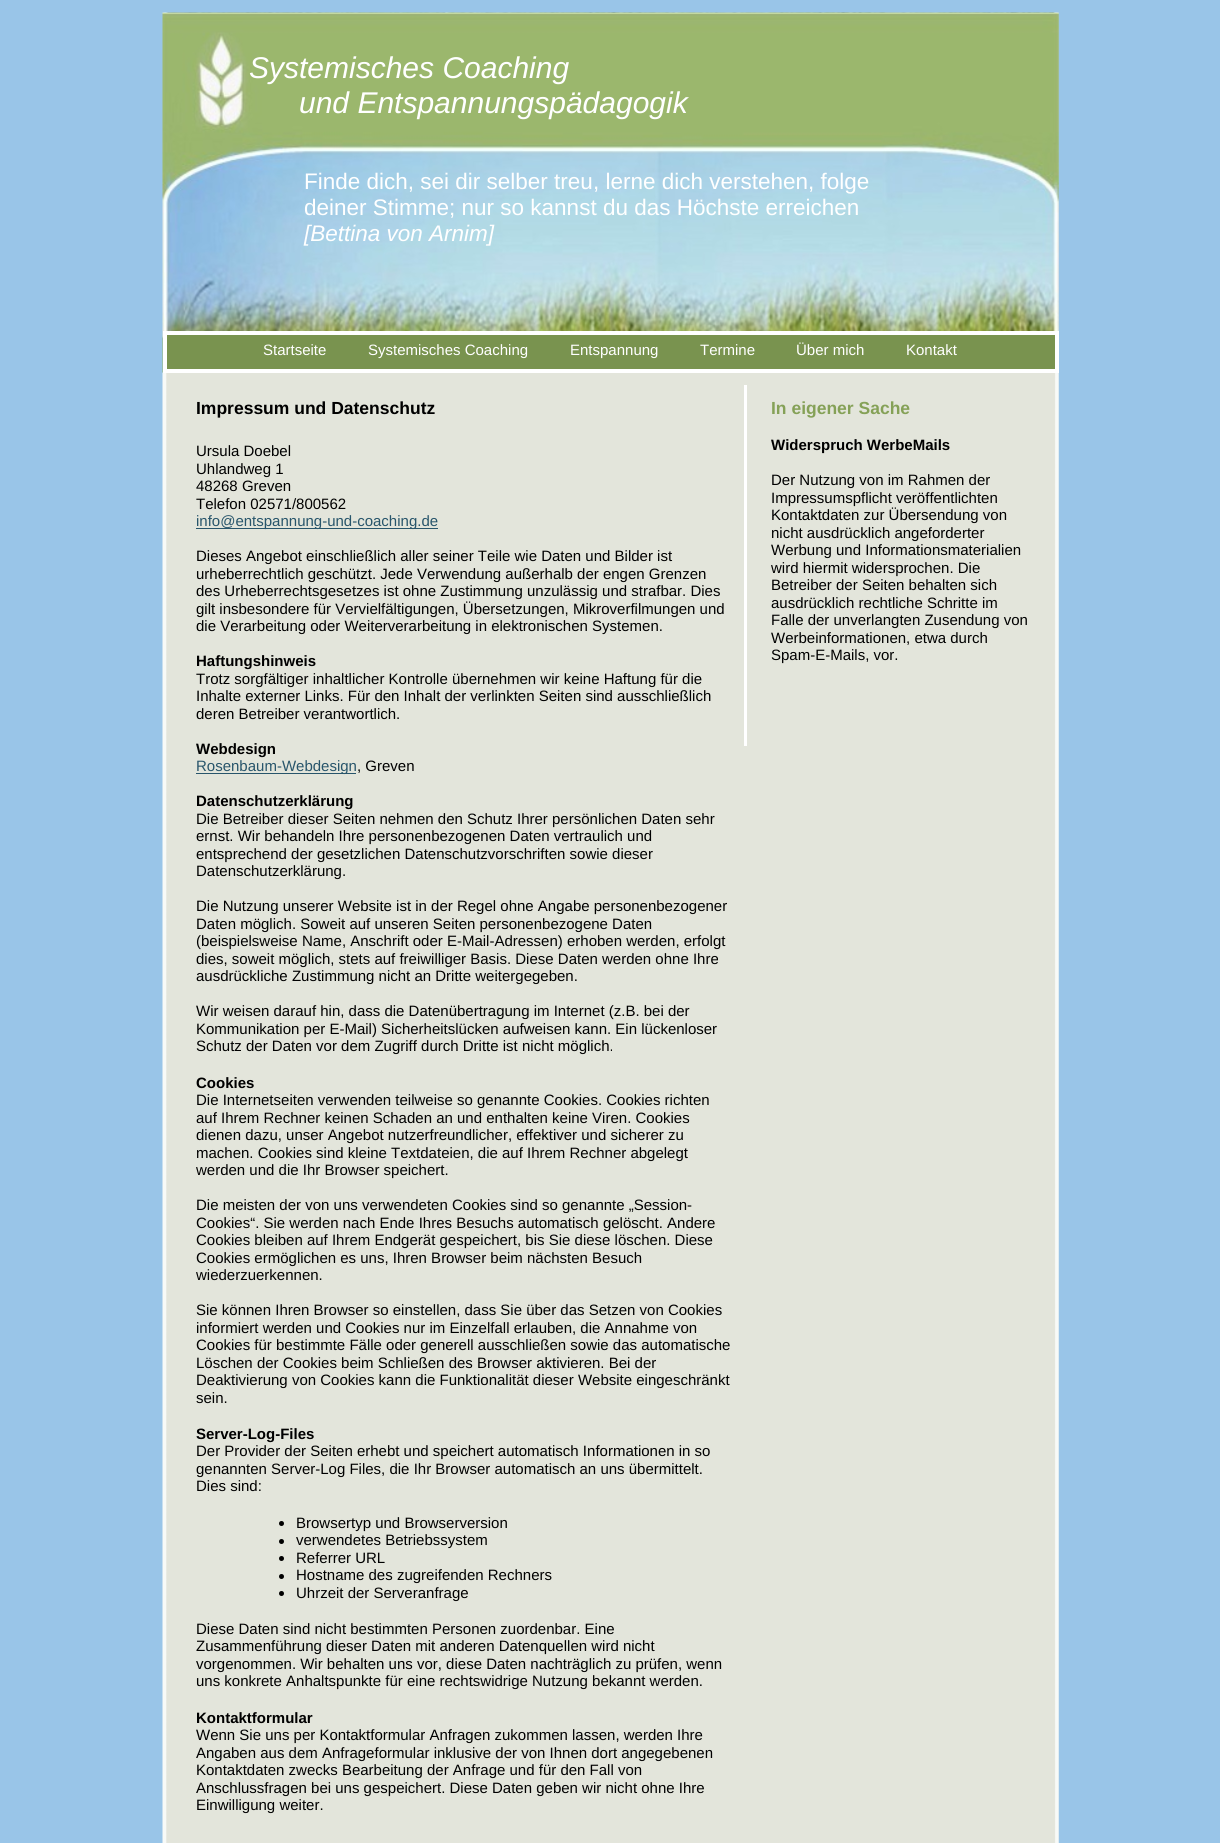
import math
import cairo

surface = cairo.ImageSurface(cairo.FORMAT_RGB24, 1220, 1843)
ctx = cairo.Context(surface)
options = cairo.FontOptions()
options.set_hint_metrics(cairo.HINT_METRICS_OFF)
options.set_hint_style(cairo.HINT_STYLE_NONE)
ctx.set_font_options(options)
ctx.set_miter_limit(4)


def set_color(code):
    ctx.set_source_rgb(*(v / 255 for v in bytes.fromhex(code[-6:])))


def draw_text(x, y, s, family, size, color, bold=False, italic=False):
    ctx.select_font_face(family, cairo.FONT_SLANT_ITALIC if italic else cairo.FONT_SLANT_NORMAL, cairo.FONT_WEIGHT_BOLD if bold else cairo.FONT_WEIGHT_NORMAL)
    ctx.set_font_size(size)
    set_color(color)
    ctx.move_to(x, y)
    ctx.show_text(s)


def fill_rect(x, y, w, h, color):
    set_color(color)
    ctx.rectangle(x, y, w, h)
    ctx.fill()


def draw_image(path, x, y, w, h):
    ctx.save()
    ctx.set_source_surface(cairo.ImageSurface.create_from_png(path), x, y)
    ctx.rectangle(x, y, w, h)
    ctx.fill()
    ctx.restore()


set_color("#99c5e8")
ctx.paint()
draw_image("assets/img2.png", 162, 372, 897, 1471)
draw_image("assets/img1.png", 162, 12, 897, 361)
draw_text(249, 78, "Systemisches Coaching", "Liberation Sans", 30, "#ffffff", italic=True)
draw_text(299, 113, "und Entspannungspädagogik", "Liberation Sans", 30, "#ffffff", italic=True)
draw_text(304, 189, "Finde dich, sei dir selber treu, lerne dich verstehen, folge", "Liberation Sans", 22.5, "#ffffff")
draw_text(304, 215, "deiner Stimme; nur so kannst du das Höchste erreichen", "Liberation Sans", 22.5, "#ffffff")
draw_text(304, 241, "[Bettina von Arnim]", "Liberation Sans", 22.5, "#ffffff", italic=True)
set_color("#79934f")
ctx.rectangle(165, 333, 892, 38)
ctx.fill_preserve()
set_color("#ffffff")
ctx.set_line_width(4)
ctx.stroke()
draw_text(263, 355, "Startseite", "Liberation Sans", 15, "#ffffff")
draw_text(368, 355, "Systemisches Coaching", "Liberation Sans", 15, "#ffffff")
draw_text(570, 355, "Entspannung", "Liberation Sans", 15, "#ffffff")
draw_text(700, 355, "Termine", "Liberation Sans", 15, "#ffffff")
draw_text(796, 355, "Über mich", "Liberation Sans", 15, "#ffffff")
draw_text(906, 355, "Kontakt", "Liberation Sans", 15, "#ffffff")
draw_text(196, 414, "Impressum und Datenschutz", "Liberation Sans", 17.5, "#000000", bold=True)
draw_text(196, 456, "Ursula Doebel", "Liberation Sans", 15, "#000000")
draw_text(196, 474, "Uhlandweg 1", "Liberation Sans", 15, "#000000")
draw_text(196, 491, "48268 Greven", "Liberation Sans", 15, "#000000")
draw_text(196, 509, "Telefon 02571/800562", "Liberation Sans", 15, "#000000")
fill_rect(196, 528, 242, 1, "#28556b")
draw_text(196, 526, "info@entspannung-und-coaching.de", "Liberation Sans", 15, "#28556b")
draw_text(196, 561, "Dieses Angebot einschließlich aller seiner Teile wie Daten und Bilder ist", "Liberation Sans", 15, "#000000")
draw_text(196, 579, "urheberrechtlich geschützt. Jede Verwendung außerhalb der engen Grenzen", "Liberation Sans", 15, "#000000")
draw_text(196, 596, "des Urheberrechtsgesetzes ist ohne Zustimmung unzulässig und strafbar. Dies", "Liberation Sans", 15, "#000000")
draw_text(196, 614, "gilt insbesondere für Vervielfältigungen, Übersetzungen, Mikroverfilmungen und", "Liberation Sans", 15, "#000000")
draw_text(196, 631, "die Verarbeitung oder Weiterverarbeitung in elektronischen Systemen.", "Liberation Sans", 15, "#000000")
draw_text(196, 666, "Haftungshinweis", "Liberation Sans", 15, "#000000", bold=True)
draw_text(196, 684, "Trotz sorgfältiger inhaltlicher Kontrolle übernehmen wir keine Haftung für die", "Liberation Sans", 15, "#000000")
draw_text(196, 701, "Inhalte externer Links. Für den Inhalt der verlinkten Seiten sind ausschließlich", "Liberation Sans", 15, "#000000")
draw_text(196, 719, "deren Betreiber verantwortlich.", "Liberation Sans", 15, "#000000")
draw_text(196, 754, "Webdesign", "Liberation Sans", 15, "#000000", bold=True)
fill_rect(196, 773, 160, 1, "#28556b")
draw_text(196, 771, "Rosenbaum-Webdesign", "Liberation Sans", 15, "#28556b")
draw_text(357, 771, ", Greven", "Liberation Sans", 15, "#000000")
draw_text(196, 806, "Datenschutzerklärung", "Liberation Sans", 15, "#000000", bold=True)
draw_text(196, 824, "Die Betreiber dieser Seiten nehmen den Schutz Ihrer persönlichen Daten sehr", "Liberation Sans", 15, "#000000")
draw_text(196, 841, "ernst. Wir behandeln Ihre personenbezogenen Daten vertraulich und", "Liberation Sans", 15, "#000000")
draw_text(196, 859, "entsprechend der gesetzlichen Datenschutzvorschriften sowie dieser", "Liberation Sans", 15, "#000000")
draw_text(196, 876, "Datenschutzerklärung.", "Liberation Sans", 15, "#000000")
draw_text(196, 911, "Die Nutzung unserer Website ist in der Regel ohne Angabe personenbezogener", "Liberation Sans", 15, "#000000")
draw_text(196, 929, "Daten möglich. Soweit auf unseren Seiten personenbezogene Daten", "Liberation Sans", 15, "#000000")
draw_text(196, 946, "(beispielsweise Name, Anschrift oder E-Mail-Adressen) erhoben werden, erfolgt", "Liberation Sans", 15, "#000000")
draw_text(196, 964, "dies, soweit möglich, stets auf freiwilliger Basis. Diese Daten werden ohne Ihre", "Liberation Sans", 15, "#000000")
draw_text(196, 981, "ausdrückliche Zustimmung nicht an Dritte weitergegeben.", "Liberation Sans", 15, "#000000")
draw_text(196, 1016, "Wir weisen darauf hin, dass die Datenübertragung im Internet (z.B. bei der", "Liberation Sans", 15, "#000000")
draw_text(196, 1034, "Kommunikation per E-Mail) Sicherheitslücken aufweisen kann. Ein lückenloser", "Liberation Sans", 15, "#000000")
draw_text(196, 1051, "Schutz der Daten vor dem Zugriff durch Dritte ist nicht möglich.", "Liberation Sans", 15, "#000000")
draw_text(196, 1088, "Cookies", "Liberation Sans", 15, "#000000", bold=True)
draw_text(196, 1105, "Die Internetseiten verwenden teilweise so genannte Cookies. Cookies richten", "Liberation Sans", 15, "#000000")
draw_text(196, 1123, "auf Ihrem Rechner keinen Schaden an und enthalten keine Viren. Cookies", "Liberation Sans", 15, "#000000")
draw_text(196, 1140, "dienen dazu, unser Angebot nutzerfreundlicher, effektiver und sicherer zu", "Liberation Sans", 15, "#000000")
draw_text(196, 1158, "machen. Cookies sind kleine Textdateien, die auf Ihrem Rechner abgelegt", "Liberation Sans", 15, "#000000")
draw_text(196, 1175, "werden und die Ihr Browser speichert.", "Liberation Sans", 15, "#000000")
draw_text(196, 1210, "Die meisten der von uns verwendeten Cookies sind so genannte „Session-", "Liberation Sans", 15, "#000000")
draw_text(196, 1228, "Cookies“. Sie werden nach Ende Ihres Besuchs automatisch gelöscht. Andere", "Liberation Sans", 15, "#000000")
draw_text(196, 1245, "Cookies bleiben auf Ihrem Endgerät gespeichert, bis Sie diese löschen. Diese", "Liberation Sans", 15, "#000000")
draw_text(196, 1263, "Cookies ermöglichen es uns, Ihren Browser beim nächsten Besuch", "Liberation Sans", 15, "#000000")
draw_text(196, 1280, "wiederzuerkennen.", "Liberation Sans", 15, "#000000")
draw_text(196, 1315, "Sie können Ihren Browser so einstellen, dass Sie über das Setzen von Cookies", "Liberation Sans", 15, "#000000")
draw_text(196, 1333, "informiert werden und Cookies nur im Einzelfall erlauben, die Annahme von", "Liberation Sans", 15, "#000000")
draw_text(196, 1350, "Cookies für bestimmte Fälle oder generell ausschließen sowie das automatische", "Liberation Sans", 15, "#000000")
draw_text(196, 1368, "Löschen der Cookies beim Schließen des Browser aktivieren. Bei der", "Liberation Sans", 15, "#000000")
draw_text(196, 1385, "Deaktivierung von Cookies kann die Funktionalität dieser Website eingeschränkt", "Liberation Sans", 15, "#000000")
draw_text(196, 1403, "sein.", "Liberation Sans", 15, "#000000")
draw_text(196, 1439, "Server-Log-Files", "Liberation Sans", 15, "#000000", bold=True)
draw_text(196, 1456, "Der Provider der Seiten erhebt und speichert automatisch Informationen in so", "Liberation Sans", 15, "#000000")
draw_text(196, 1474, "genannten Server-Log Files, die Ihr Browser automatisch an uns übermittelt.", "Liberation Sans", 15, "#000000")
draw_text(196, 1491, "Dies sind:", "Liberation Sans", 15, "#000000")
ctx.new_path()
ctx.arc(281.5, 1523.5, 2.5, 0, 2 * math.pi)
ctx.fill()
draw_text(296, 1528, "Browsertyp und Browserversion", "Liberation Sans", 15, "#000000")
ctx.new_path()
ctx.arc(281.5, 1541.5, 2.5, 0, 2 * math.pi)
ctx.fill()
draw_text(296, 1545, "verwendetes Betriebssystem", "Liberation Sans", 15, "#000000")
ctx.new_path()
ctx.arc(281.5, 1558.5, 2.5, 0, 2 * math.pi)
ctx.fill()
draw_text(296, 1563, "Referrer URL", "Liberation Sans", 15, "#000000")
ctx.new_path()
ctx.arc(281.5, 1576.5, 2.5, 0, 2 * math.pi)
ctx.fill()
draw_text(296, 1580, "Hostname des zugreifenden Rechners", "Liberation Sans", 15, "#000000")
ctx.new_path()
ctx.arc(281.5, 1593.5, 2.5, 0, 2 * math.pi)
ctx.fill()
draw_text(296, 1598, "Uhrzeit der Serveranfrage", "Liberation Sans", 15, "#000000")
draw_text(196, 1634, "Diese Daten sind nicht bestimmten Personen zuordenbar. Eine", "Liberation Sans", 15, "#000000")
draw_text(196, 1651, "Zusammenführung dieser Daten mit anderen Datenquellen wird nicht", "Liberation Sans", 15, "#000000")
draw_text(196, 1669, "vorgenommen. Wir behalten uns vor, diese Daten nachträglich zu prüfen, wenn", "Liberation Sans", 15, "#000000")
draw_text(196, 1686, "uns konkrete Anhaltspunkte für eine rechtswidrige Nutzung bekannt werden.", "Liberation Sans", 15, "#000000")
draw_text(196, 1723, "Kontaktformular", "Liberation Sans", 15, "#000000", bold=True)
draw_text(196, 1740, "Wenn Sie uns per Kontaktformular Anfragen zukommen lassen, werden Ihre", "Liberation Sans", 15, "#000000")
draw_text(196, 1758, "Angaben aus dem Anfrageformular inklusive der von Ihnen dort angegebenen", "Liberation Sans", 15, "#000000")
draw_text(196, 1775, "Kontaktdaten zwecks Bearbeitung der Anfrage und für den Fall von", "Liberation Sans", 15, "#000000")
draw_text(196, 1793, "Anschlussfragen bei uns gespeichert. Diese Daten geben wir nicht ohne Ihre", "Liberation Sans", 15, "#000000")
draw_text(196, 1810, "Einwilligung weiter.", "Liberation Sans", 15, "#000000")
fill_rect(744, 385, 3, 361, "#ffffff")
draw_text(771, 414, "In eigener Sache", "Liberation Sans", 17.5, "#85a157", bold=True)
draw_text(771, 450, "Widerspruch WerbeMails", "Liberation Sans", 15, "#000000", bold=True)
draw_text(771, 485, "Der Nutzung von im Rahmen der", "Liberation Sans", 15, "#000000")
draw_text(771, 503, "Impressumspflicht veröffentlichten", "Liberation Sans", 15, "#000000")
draw_text(771, 520, "Kontaktdaten zur Übersendung von", "Liberation Sans", 15, "#000000")
draw_text(771, 538, "nicht ausdrücklich angeforderter", "Liberation Sans", 15, "#000000")
draw_text(771, 555, "Werbung und Informationsmaterialien", "Liberation Sans", 15, "#000000")
draw_text(771, 573, "wird hiermit widersprochen. Die", "Liberation Sans", 15, "#000000")
draw_text(771, 590, "Betreiber der Seiten behalten sich", "Liberation Sans", 15, "#000000")
draw_text(771, 608, "ausdrücklich rechtliche Schritte im", "Liberation Sans", 15, "#000000")
draw_text(771, 625, "Falle der unverlangten Zusendung von", "Liberation Sans", 15, "#000000")
draw_text(771, 643, "Werbeinformationen, etwa durch", "Liberation Sans", 15, "#000000")
draw_text(771, 660, "Spam-E-Mails, vor.", "Liberation Sans", 15, "#000000")
surface.write_to_png("output.png")
